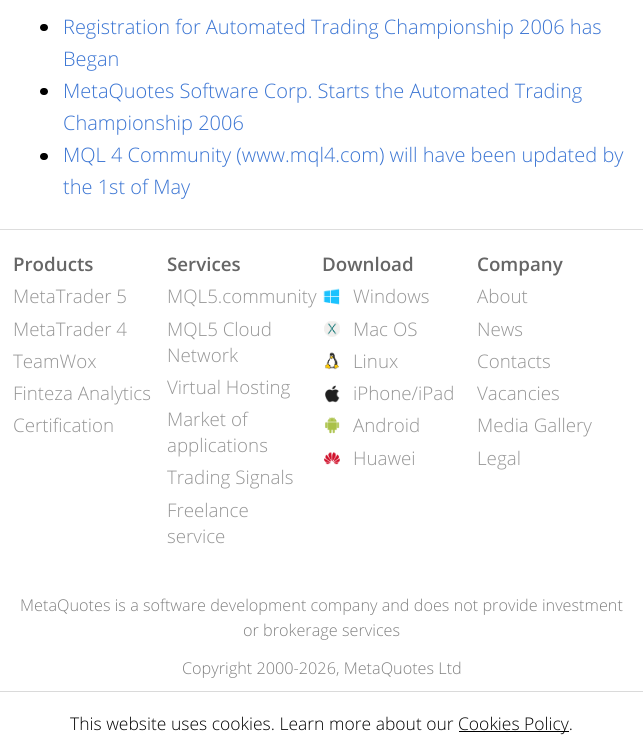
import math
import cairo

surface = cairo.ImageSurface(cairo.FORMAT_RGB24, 643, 754)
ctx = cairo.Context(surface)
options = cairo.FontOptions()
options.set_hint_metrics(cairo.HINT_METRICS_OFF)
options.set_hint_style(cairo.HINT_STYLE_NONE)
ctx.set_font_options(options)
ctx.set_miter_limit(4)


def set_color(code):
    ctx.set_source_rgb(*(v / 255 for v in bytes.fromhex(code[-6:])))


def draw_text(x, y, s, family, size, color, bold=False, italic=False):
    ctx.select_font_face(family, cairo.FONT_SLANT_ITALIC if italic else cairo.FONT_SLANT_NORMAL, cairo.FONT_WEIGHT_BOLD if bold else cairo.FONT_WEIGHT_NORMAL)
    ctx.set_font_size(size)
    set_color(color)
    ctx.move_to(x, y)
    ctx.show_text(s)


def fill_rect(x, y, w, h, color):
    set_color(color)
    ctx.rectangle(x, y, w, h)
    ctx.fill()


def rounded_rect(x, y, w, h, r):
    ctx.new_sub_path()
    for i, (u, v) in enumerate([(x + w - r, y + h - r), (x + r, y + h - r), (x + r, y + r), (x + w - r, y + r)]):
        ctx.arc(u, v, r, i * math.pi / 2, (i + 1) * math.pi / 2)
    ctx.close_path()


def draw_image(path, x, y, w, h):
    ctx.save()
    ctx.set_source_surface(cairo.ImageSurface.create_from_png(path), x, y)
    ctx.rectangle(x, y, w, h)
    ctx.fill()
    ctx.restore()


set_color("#ffffff")
ctx.paint()
set_color("#000000")
rounded_rect(40, 24, 8, 7, 3.5)
ctx.fill()
draw_text(63, 34, "Registration for Automated Trading Championship 2006 has", "Open Sans Light", 20, "#3b75d3")
draw_text(63, 66, "Began", "Open Sans Light", 20, "#3b75d3")
set_color("#000000")
rounded_rect(40, 88, 8, 7, 3.5)
ctx.fill()
draw_text(63, 98, "MetaQuotes Software Corp. Starts the Automated Trading", "Open Sans Light", 20, "#3b75d3")
draw_text(63, 130, "Championship 2006", "Open Sans Light", 20, "#3b75d3")
set_color("#000000")
rounded_rect(40, 153, 8, 7, 3.5)
ctx.fill()
draw_text(63, 162, "MQL 4 Community (www.mql4.com) will have been updated by", "Open Sans Light", 20, "#3b75d3")
draw_text(63, 194, "the 1st of May", "Open Sans Light", 20, "#3b75d3")
fill_rect(0, 229, 643, 1, "#dddddd")
draw_text(13, 271, "Products", "Open Sans SemiBold", 18.75, "#666666")
draw_text(13, 303, "MetaTrader 5", "Open Sans Light", 18.75, "#959595")
draw_text(13, 336, "MetaTrader 4", "Open Sans Light", 18.75, "#959595")
draw_text(13, 368, "TeamWox", "Open Sans Light", 18.75, "#959595")
draw_text(13, 400, "Finteza Analytics", "Open Sans Light", 18.75, "#959595")
draw_text(13, 432, "Certification", "Open Sans Light", 18.75, "#959595")
draw_text(167, 271, "Services", "Open Sans SemiBold", 18.75, "#666666")
draw_text(167, 303, "MQL5.community", "Open Sans Light", 18.75, "#959595")
draw_text(167, 336, "MQL5 Cloud", "Open Sans Light", 18.75, "#959595")
draw_text(167, 362, "Network", "Open Sans Light", 18.75, "#959595")
draw_text(167, 394, "Virtual Hosting", "Open Sans Light", 18.75, "#959595")
draw_text(167, 426, "Market of", "Open Sans Light", 18.75, "#959595")
draw_text(167, 452, "applications", "Open Sans Light", 18.75, "#959595")
draw_text(167, 484, "Trading Signals", "Open Sans Light", 18.75, "#959595")
draw_text(167, 517, "Freelance", "Open Sans Light", 18.75, "#959595")
draw_text(167, 543, "service", "Open Sans Light", 18.75, "#959595")
draw_text(322, 271, "Download", "Open Sans SemiBold", 18.75, "#666666")
draw_image("assets/img1.png", 323, 288, 17, 17)
draw_text(353, 303, "Windows", "Open Sans Light", 18.75, "#959595")
draw_image("assets/img2.png", 324, 321, 16, 16)
draw_text(353, 336, "Mac OS", "Open Sans Light", 18.75, "#959595")
draw_image("assets/img3.png", 325, 352, 14, 18)
draw_text(353, 368, "Linux", "Open Sans Light", 18.75, "#959595")
draw_image("assets/img4.png", 325, 385, 15, 18)
draw_text(353, 400, "iPhone/iPad", "Open Sans Light", 18.75, "#959595")
draw_image("assets/img5.png", 325, 417, 15, 17)
draw_text(353, 432, "Android", "Open Sans Light", 18.75, "#959595")
draw_image("assets/img6.png", 324, 452, 16, 13)
draw_text(353, 465, "Huawei", "Open Sans Light", 18.75, "#959595")
draw_text(477, 271, "Company", "Open Sans SemiBold", 18.75, "#666666")
draw_text(477, 303, "About", "Open Sans Light", 18.75, "#959595")
draw_text(477, 336, "News", "Open Sans Light", 18.75, "#959595")
draw_text(477, 368, "Contacts", "Open Sans Light", 18.75, "#959595")
draw_text(477, 400, "Vacancies", "Open Sans Light", 18.75, "#959595")
draw_text(477, 432, "Media Gallery", "Open Sans Light", 18.75, "#959595")
draw_text(477, 465, "Legal", "Open Sans Light", 18.75, "#959595")
draw_text(20, 611, "MetaQuotes is a software development company and does not provide investment", "Open Sans Light", 16.25, "#818181")
draw_text(243, 636, "or brokerage services", "Open Sans Light", 16.25, "#818181")
draw_text(182, 674, "Copyright 2000-2026, MetaQuotes Ltd", "Open Sans Light", 16.25, "#818181")
fill_rect(0, 691, 643, 1, "#dadada")
draw_text(70, 730, "This website uses cookies. Learn more about our", "Open Sans Light", 17.5, "#000000")
fill_rect(459, 731, 110, 1, "#000000")
draw_text(458, 730, "Cookies Policy.", "Open Sans Light", 17.5, "#000000")
surface.write_to_png("output.png")
